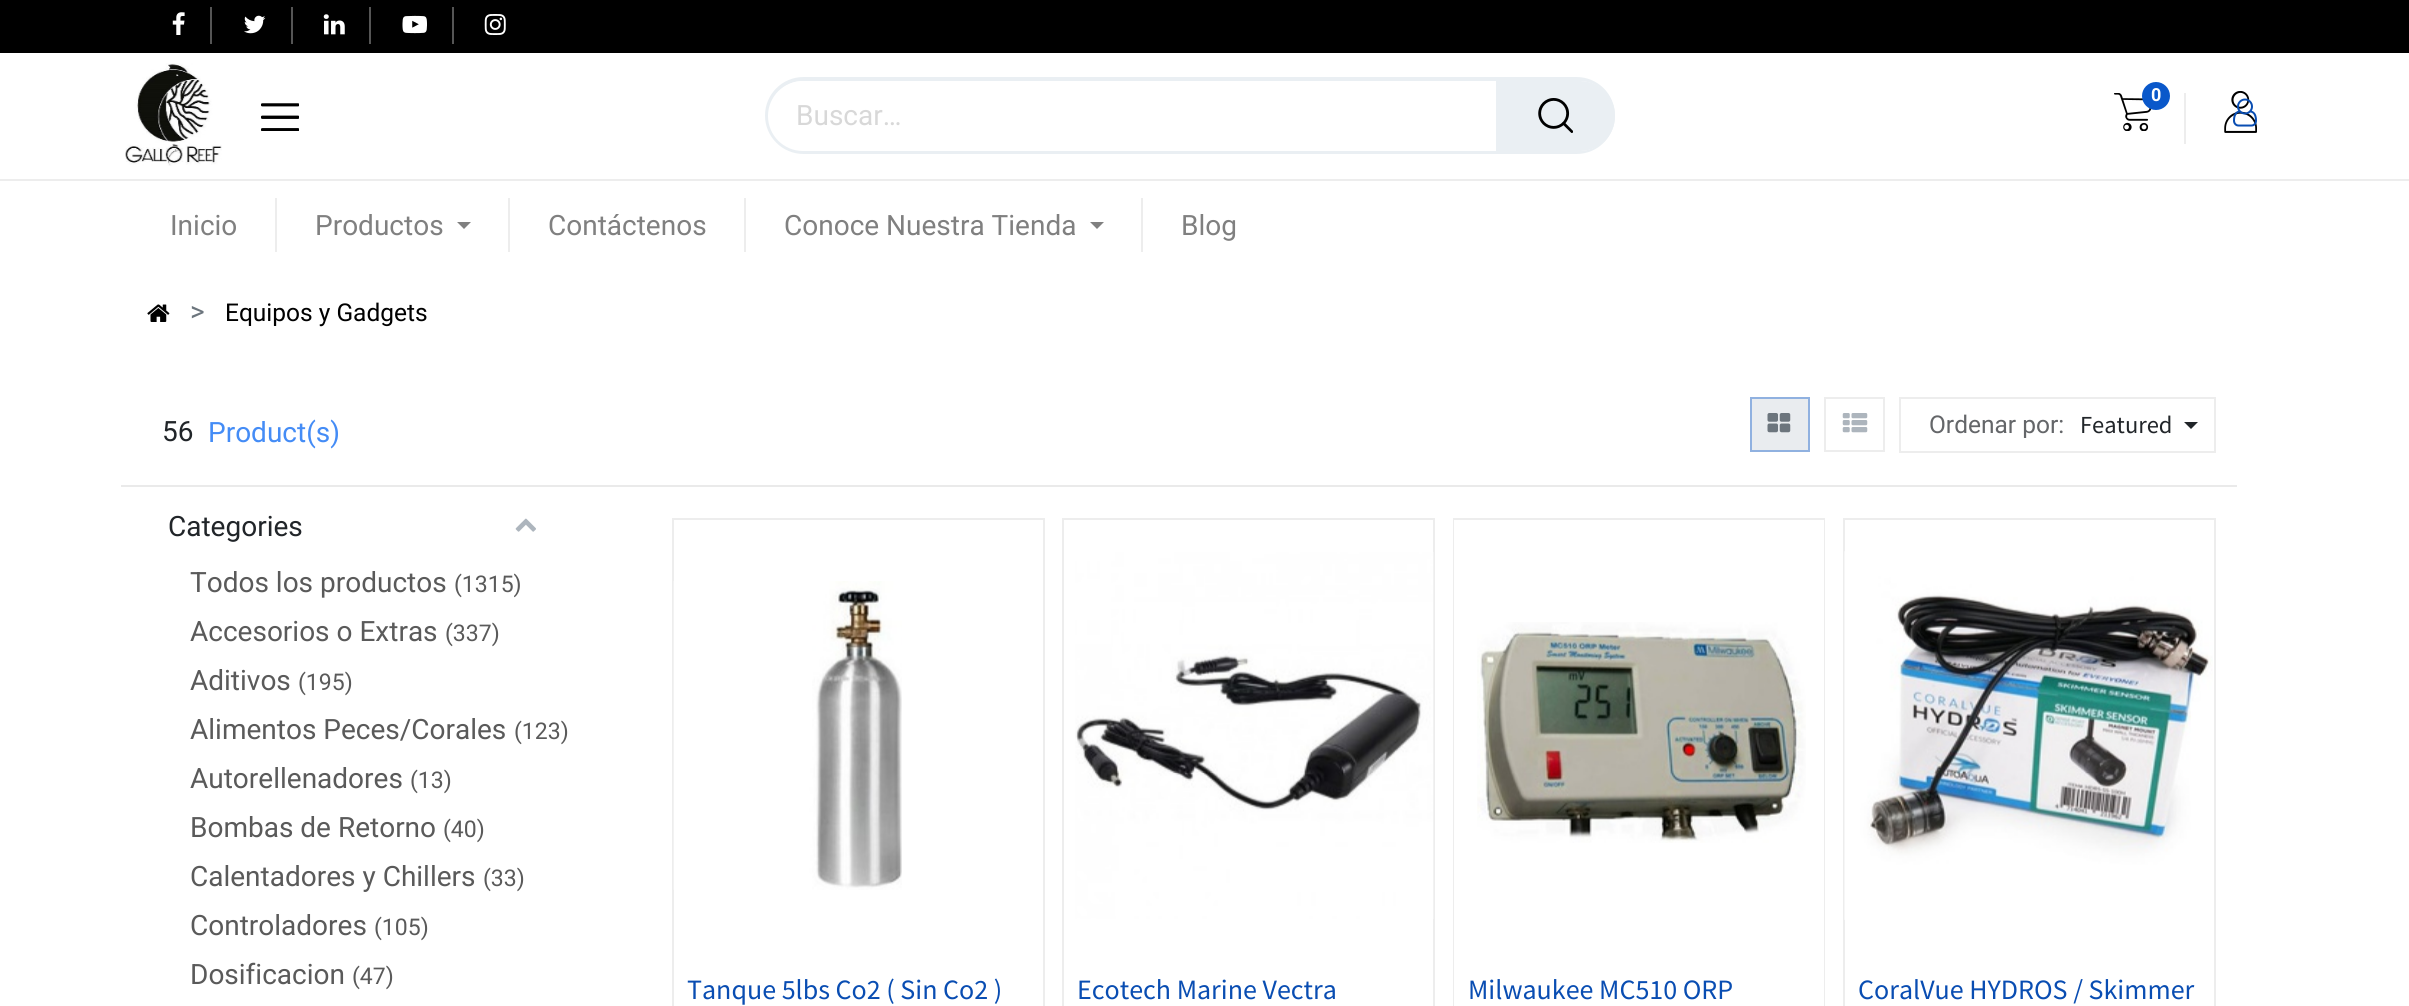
import math
import cairo

surface = cairo.ImageSurface(cairo.FORMAT_RGB24, 2409, 1006)
ctx = cairo.Context(surface)
options = cairo.FontOptions()
options.set_hint_metrics(cairo.HINT_METRICS_OFF)
options.set_hint_style(cairo.HINT_STYLE_NONE)
ctx.set_font_options(options)
ctx.set_miter_limit(4)


def set_color(code):
    ctx.set_source_rgb(*(v / 255 for v in bytes.fromhex(code[-6:])))


def draw_text(x, y, s, family, size, color, bold=False, italic=False):
    ctx.select_font_face(family, cairo.FONT_SLANT_ITALIC if italic else cairo.FONT_SLANT_NORMAL, cairo.FONT_WEIGHT_BOLD if bold else cairo.FONT_WEIGHT_NORMAL)
    ctx.set_font_size(size)
    set_color(color)
    ctx.move_to(x, y)
    ctx.show_text(s)


def fill_rect(x, y, w, h, color):
    set_color(color)
    ctx.rectangle(x, y, w, h)
    ctx.fill()


def rounded_rect(x, y, w, h, r):
    ctx.new_sub_path()
    for i, (u, v) in enumerate([(x + w - r, y + h - r), (x + r, y + h - r), (x + r, y + r), (x + w - r, y + r)]):
        ctx.arc(u, v, r, i * math.pi / 2, (i + 1) * math.pi / 2)
    ctx.close_path()


def draw_image(path, x, y, w, h):
    ctx.save()
    ctx.set_source_surface(cairo.ImageSurface.create_from_png(path), x, y)
    ctx.rectangle(x, y, w, h)
    ctx.fill()
    ctx.restore()


set_color("#ffffff")
ctx.paint()
fill_rect(0, 0, 2409, 53, "#000000")
fill_rect(210, 7, 2, 37, "#555555")
draw_image("assets/img1.png", 172, 12, 13, 23)
fill_rect(291, 7, 2, 37, "#555555")
draw_image("assets/img2.png", 244, 15, 22, 19)
fill_rect(369, 7, 2, 37, "#555555")
draw_image("assets/img3.png", 323, 14, 22, 21)
fill_rect(452, 7, 2, 37, "#555555")
draw_image("assets/img4.png", 402, 15, 25, 19)
draw_image("assets/img5.png", 484, 14, 22, 21)
draw_image("assets/img6.png", 125, 63, 97, 103)
draw_image("assets/img7.png", 261, 103, 38, 28)
fill_rect(2184, 93, 2, 51, "#ededed")
draw_image("assets/img8.png", 2114, 93, 38, 38)
set_color("#0a58ca")
ctx.arc(2156, 96, 14, 0, 2 * math.pi)
ctx.fill()
draw_text(2151, 101, "0", "Roboto", 18, "#ffffff", bold=True)
draw_image("assets/img9.png", 2224, 91, 33, 42)
draw_image("assets/img10.png", 2233, 98, 24, 29)
rounded_rect(767, 79, 846, 73, 36.5)
set_color("#eaeff3")
ctx.set_line_width(4)
ctx.stroke()
set_color("#ffffff")
rounded_rect(768, 81, 846, 70, 35)
ctx.fill()
draw_text(796, 125, "Buscar…", "Roboto", 28, "#d8d8d8")
set_color("#eaeff3")
ctx.new_path()
ctx.move_to(1496, 81)
ctx.line_to(1580, 81)
ctx.curve_to(1599.5, 81, 1615, 96.5, 1615, 116)
ctx.curve_to(1615, 135.5, 1599.5, 151, 1580, 151)
ctx.line_to(1496, 151)
ctx.close_path()
ctx.fill()
draw_image("assets/img11.png", 1538, 98, 35, 35)
fill_rect(0, 179, 2409, 2, "#ededed")
draw_text(170, 235, "Inicio", "Roboto", 28, "#808080")
fill_rect(275, 198, 2, 54, "#ededed")
draw_text(315, 235, "Productos", "Roboto", 28, "#808080")
ctx.new_path()
ctx.move_to(457, 222)
ctx.line_to(471, 222)
ctx.line_to(464, 229)
ctx.close_path()
ctx.fill()
fill_rect(508, 198, 2, 54, "#ededed")
draw_text(548, 235, "Contáctenos", "Roboto", 28, "#808080")
fill_rect(744, 198, 2, 54, "#ededed")
draw_text(784, 235, "Conoce Nuestra Tienda", "Roboto", 28, "#808080")
ctx.new_path()
ctx.move_to(1090, 222)
ctx.line_to(1104, 222)
ctx.line_to(1097, 229)
ctx.close_path()
ctx.fill()
fill_rect(1141, 198, 2, 54, "#ededed")
draw_text(1181, 235, "Blog", "Roboto", 28, "#808080")
draw_image("assets/img12.png", 147, 304, 23, 18)
draw_text(190, 321, ">", "Roboto", 28, "#6c757d")
draw_text(225, 321, "Equipos y Gadgets", "Roboto", 24.5, "#000000")
fill_rect(121, 485, 2116, 2, "#eaeaea")
draw_text(162, 441, "56", "Roboto", 28, "#212529")
draw_text(208, 442, "Product(s)", "Roboto", 28, "#448cf6")
set_color("#e9ecef")
ctx.rectangle(1751, 398, 58, 53)
ctx.fill_preserve()
set_color("#90b1e0")
ctx.set_line_width(2)
ctx.stroke()
draw_image("assets/img13.png", 1767, 413, 24, 20)
ctx.rectangle(1825, 398, 59, 53)
set_color("#ededed")
ctx.stroke()
draw_image("assets/img14.png", 1842, 413, 26, 20)
ctx.rectangle(1900, 398, 315, 54)
ctx.stroke()
draw_text(1929, 433, "Ordenar por:", "Roboto", 24.5, "#646669")
draw_text(2080, 433, "Featured", "Source Sans Pro", 24.5, "#212529")
ctx.new_path()
ctx.move_to(2184, 422)
ctx.line_to(2198, 422)
ctx.line_to(2191, 429)
ctx.close_path()
ctx.fill()
draw_text(168, 536, "Categories", "Roboto", 28, "#212529")
draw_image("assets/img15.png", 515, 518, 21, 14)
draw_text(190, 592, "Todos los productos", "Roboto", 28, "#5a5a5a")
draw_text(454, 592, "(1315)", "Roboto", 23, "#5a5a5a")
draw_text(190, 641, "Accesorios o Extras", "Roboto", 28, "#5a5a5a")
draw_text(445, 641, "(337)", "Roboto", 23, "#5a5a5a")
draw_text(190, 690, "Aditivos", "Roboto", 28, "#5a5a5a")
draw_text(298, 690, "(195)", "Roboto", 23, "#5a5a5a")
draw_text(190, 739, "Alimentos Peces/Corales", "Roboto", 28, "#5a5a5a")
draw_text(514, 739, "(123)", "Roboto", 23, "#5a5a5a")
draw_text(190, 788, "Autorellenadores", "Roboto", 28, "#5a5a5a")
draw_text(410, 788, "(13)", "Roboto", 23, "#5a5a5a")
draw_text(190, 837, "Bombas de Retorno", "Roboto", 28, "#5a5a5a")
draw_text(443, 837, "(40)", "Roboto", 23, "#5a5a5a")
draw_text(190, 886, "Calentadores y Chillers", "Roboto", 28, "#5a5a5a")
draw_text(483, 886, "(33)", "Roboto", 23, "#5a5a5a")
draw_text(190, 935, "Controladores", "Roboto", 28, "#5a5a5a")
draw_text(374, 935, "(105)", "Roboto", 23, "#5a5a5a")
draw_text(190, 984, "Dosificacion", "Roboto", 28, "#5a5a5a")
draw_text(352, 984, "(47)", "Roboto", 23, "#5a5a5a")
ctx.rectangle(673, 519, 371, 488)
set_color("#ededed")
ctx.stroke()
draw_image("assets/img16.png", 673, 581, 229, 309)
draw_text(687, 999, "Tanque 5lbs Co2 ( Sin Co2 )", "Source Sans Pro", 28, "#094db2")
ctx.rectangle(1063, 519, 371, 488)
set_color("#ededed")
ctx.stroke()
draw_image("assets/img17.png", 1075, 552, 359, 367)
draw_text(1077, 999, "Ecotech Marine Vectra", "Source Sans Pro", 28, "#094db2")
ctx.rectangle(1454, 519, 370, 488)
set_color("#ededed")
ctx.stroke()
fill_rect(1454, 520, 370, 486, "#ffffff")
draw_image("assets/img18.png", 1477, 622, 329, 221)
draw_text(1468, 999, "Milwaukee MC510 ORP", "Source Sans Pro", 28, "#094db2")
ctx.rectangle(1844, 519, 371, 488)
set_color("#ededed")
ctx.stroke()
draw_image("assets/img19.png", 1844, 551, 369, 369)
draw_text(1858, 999, "CoralVue HYDROS / Skimmer", "Source Sans Pro", 28, "#094db2")
surface.write_to_png("output.png")
